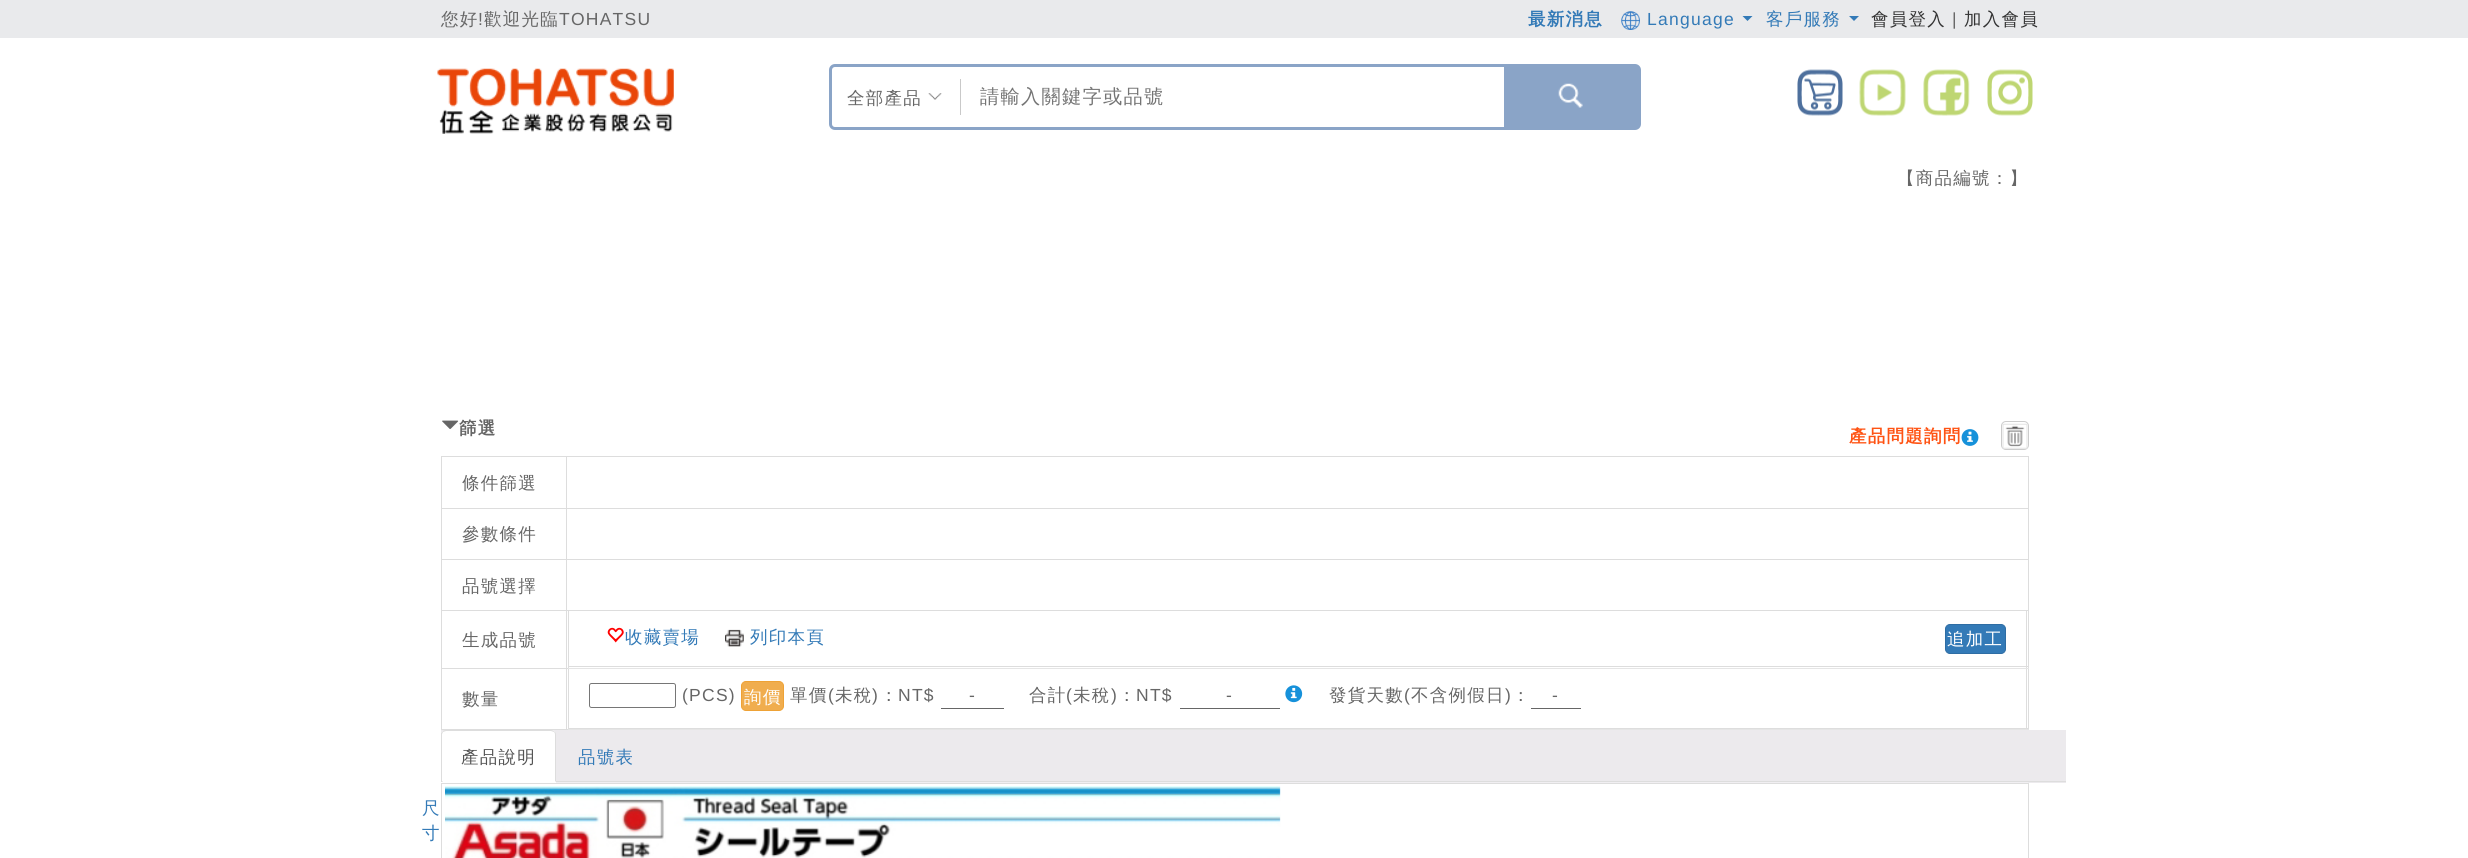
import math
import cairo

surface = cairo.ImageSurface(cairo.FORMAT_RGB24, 2468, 858)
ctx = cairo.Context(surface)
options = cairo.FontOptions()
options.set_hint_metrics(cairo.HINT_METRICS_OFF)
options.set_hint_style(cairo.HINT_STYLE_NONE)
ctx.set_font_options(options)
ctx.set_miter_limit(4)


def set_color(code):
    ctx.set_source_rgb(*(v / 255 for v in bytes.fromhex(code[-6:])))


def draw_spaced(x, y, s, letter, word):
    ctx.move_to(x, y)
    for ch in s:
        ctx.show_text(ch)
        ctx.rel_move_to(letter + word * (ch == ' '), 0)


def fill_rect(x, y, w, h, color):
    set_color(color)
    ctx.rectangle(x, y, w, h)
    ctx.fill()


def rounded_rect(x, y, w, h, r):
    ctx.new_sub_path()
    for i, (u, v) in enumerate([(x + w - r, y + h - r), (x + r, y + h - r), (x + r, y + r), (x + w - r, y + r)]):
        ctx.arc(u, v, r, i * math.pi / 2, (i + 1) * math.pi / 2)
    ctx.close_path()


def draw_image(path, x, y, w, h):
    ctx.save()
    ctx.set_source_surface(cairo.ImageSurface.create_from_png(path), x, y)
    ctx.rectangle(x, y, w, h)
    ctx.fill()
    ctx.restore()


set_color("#ffffff")
ctx.paint()
fill_rect(0, 0, 2468, 38, "#e9eaec")
ctx.select_font_face("WenQuanYi Zen Hei Medium")
ctx.set_font_size(17.5)
set_color("#666666")
draw_spaced(441, 25, "您好", 1.25, 0)
ctx.select_font_face("Liberation Sans")
draw_spaced(478, 25, "!", 1.25, 0)
ctx.select_font_face("WenQuanYi Zen Hei Medium")
draw_spaced(484, 25, "歡迎光臨", 1.25, 0)
ctx.select_font_face("Liberation Sans")
draw_spaced(559, 25, "TOHATSU", 1.25, 0)
ctx.select_font_face("WenQuanYi Zen Hei", cairo.FONT_SLANT_NORMAL, cairo.FONT_WEIGHT_BOLD)
set_color("#337ab7")
draw_spaced(1528, 25, "最新消息", 1.25, 0)
draw_image("assets/img1.png", 1621, 11, 19, 19)
ctx.select_font_face("Liberation Sans")
draw_spaced(1647, 25, "Language", 1.25, 0)
ctx.new_path()
ctx.move_to(1742.5, 16)
ctx.line_to(1752.5, 16)
ctx.line_to(1747.5, 21)
ctx.close_path()
ctx.fill()
ctx.select_font_face("WenQuanYi Zen Hei Medium")
draw_spaced(1766, 25, "客戶服務", 1.25, 0)
ctx.new_path()
ctx.move_to(1849, 16)
ctx.line_to(1859, 16)
ctx.line_to(1854, 21)
ctx.close_path()
ctx.fill()
set_color("#333333")
draw_spaced(1871, 25, "會員登入", 1.25, 0)
ctx.select_font_face("Liberation Sans")
set_color("#666666")
draw_spaced(1952, 25, "|", 1.25, 0)
ctx.select_font_face("WenQuanYi Zen Hei Medium")
set_color("#333333")
draw_spaced(1964, 25, "加入會員", 1.25, 0)
draw_image("assets/img2.png", 437, 68, 237, 66)
rounded_rect(830.5, 65.5, 809, 63, 4.5)
set_color("#8aa4c7")
ctx.set_line_width(3)
ctx.stroke()
set_color("#666666")
draw_spaced(847, 104, "全部產品", 1.25, 0)
draw_image("assets/img3.png", 928, 93, 14, 7)
fill_rect(960, 79, 1, 36, "#c9c9c9")
ctx.set_font_size(19.25)
set_color("#757575")
draw_spaced(980, 103, "請輸入關鍵字或品號", 1.25, 0)
fill_rect(1504, 67, 134, 60, "#8aa4c7")
draw_image("assets/img4.png", 1558, 83, 25, 25)
draw_image("assets/img5.png", 1797, 69, 46, 47)
draw_image("assets/img6.png", 1859, 69, 47, 47)
draw_image("assets/img7.png", 1923, 69, 47, 47)
draw_image("assets/img8.png", 1987, 69, 46, 47)
ctx.set_font_size(17.5)
set_color("#666666")
draw_spaced(1897, 184, "【商品編號：】", 1.25, 0)
draw_image("assets/img9.png", 442, 420, 17, 9)
ctx.select_font_face("WenQuanYi Zen Hei", cairo.FONT_SLANT_NORMAL, cairo.FONT_WEIGHT_BOLD)
draw_spaced(459, 434, "篩選", 1.25, 0)
set_color("#ff5313")
draw_spaced(1849, 442, "產品問題詢問", 1.25, 0)
draw_image("assets/img10.png", 1961, 429, 18, 17)
rounded_rect(2001.5, 421.5, 27, 28, 4.5)
set_color("#cccccc")
ctx.set_line_width(1)
ctx.stroke()
draw_image("assets/img11.png", 2002, 423, 26, 26)
fill_rect(441, 456, 1588, 1, "#dddddd")
fill_rect(2028, 456, 1, 274, "#dddddd")
fill_rect(441, 456, 1, 52, "#dddddd")
fill_rect(566, 610, 1, 120, "#dddddd")
fill_rect(566, 610, 1463, 1, "#dddddd")
fill_rect(566, 559, 1, 52, "#dddddd")
fill_rect(566, 559, 1463, 1, "#dddddd")
fill_rect(566, 508, 1, 52, "#dddddd")
fill_rect(566, 508, 1463, 1, "#dddddd")
fill_rect(566, 456, 1, 53, "#dddddd")
fill_rect(441, 729, 127, 1, "#dddddd")
fill_rect(441, 668, 1, 62, "#dddddd")
fill_rect(441, 668, 127, 1, "#dddddd")
fill_rect(441, 610, 1, 59, "#dddddd")
fill_rect(441, 610, 127, 1, "#dddddd")
fill_rect(441, 559, 1, 52, "#dddddd")
fill_rect(441, 559, 127, 1, "#dddddd")
fill_rect(441, 508, 1, 52, "#dddddd")
fill_rect(441, 508, 127, 1, "#dddddd")
ctx.select_font_face("WenQuanYi Zen Hei Medium")
set_color("#666666")
draw_spaced(462, 489, "條件篩選", 1.25, 0)
draw_spaced(462, 540, "參數條件", 1.25, 0)
draw_spaced(462, 592, "品號選擇", 1.25, 0)
fill_rect(568, 668, 1461, 1, "#e5e5e5")
set_color("#666666")
draw_spaced(462, 646, "生成品號", 1.25, 0)
fill_rect(2026, 611, 1, 57, "#dddddd")
fill_rect(568, 666, 1460, 1, "#dddddd")
fill_rect(568, 611, 1, 57, "#dddddd")
draw_image("assets/img12.png", 607, 627, 17, 16)
set_color("#337ab7")
draw_spaced(625, 643, "收藏賣場", 1.25, 0)
draw_image("assets/img13.png", 725, 629, 19, 18)
draw_spaced(750, 643, "列印本頁", 1.25, 0)
rounded_rect(1945.5, 624.5, 60, 29, 4.5)
ctx.fill_preserve()
set_color("#2e6da4")
ctx.stroke()
set_color("#ffffff")
draw_spaced(1947, 645, "追加工", 1.25, 0)
fill_rect(568, 729, 1461, 1, "#e5e5e5")
set_color("#666666")
draw_spaced(462, 705, "數量", 1.25, 0)
fill_rect(2026, 669, 1, 60, "#dddddd")
fill_rect(568, 728, 1460, 1, "#dddddd")
fill_rect(568, 669, 1, 60, "#dddddd")
rounded_rect(589.5, 683.5, 86, 24, 2)
set_color("#767676")
ctx.stroke()
ctx.select_font_face("Liberation Sans")
set_color("#666666")
draw_spaced(682, 701, "(PCS)", 1.25, 0)
set_color("#f0ad4e")
rounded_rect(741.5, 681.5, 42, 29, 4.5)
ctx.fill_preserve()
set_color("#eea236")
ctx.stroke()
ctx.select_font_face("WenQuanYi Zen Hei Medium")
set_color("#ffffff")
draw_spaced(744, 703, "詢價", 1.25, 0)
set_color("#666666")
draw_spaced(790, 701, "單價", 1.25, 0)
ctx.select_font_face("Liberation Sans")
draw_spaced(828, 701, "(", 1.25, 0)
ctx.select_font_face("WenQuanYi Zen Hei Medium")
draw_spaced(835, 701, "未稅", 1.25, 0)
ctx.select_font_face("Liberation Sans")
draw_spaced(872, 701, ")", 1.25, 0)
ctx.select_font_face("WenQuanYi Zen Hei Medium")
draw_spaced(880, 701, "：", 1.25, 0)
ctx.select_font_face("Liberation Sans")
draw_spaced(898, 701, "NT$", 1.25, 0)
fill_rect(941, 708, 63, 1, "#666666")
draw_spaced(969, 701, "-", 1.25, 0)
ctx.select_font_face("WenQuanYi Zen Hei Medium")
draw_spaced(1029, 701, "合計", 1.25, 0)
ctx.select_font_face("Liberation Sans")
draw_spaced(1066, 701, "(", 1.25, 0)
ctx.select_font_face("WenQuanYi Zen Hei Medium")
draw_spaced(1073, 701, "未稅", 1.25, 0)
ctx.select_font_face("Liberation Sans")
draw_spaced(1111, 701, ")", 1.25, 0)
ctx.select_font_face("WenQuanYi Zen Hei Medium")
draw_spaced(1118, 701, "：", 1.25, 0)
ctx.select_font_face("Liberation Sans")
draw_spaced(1136, 701, "NT$", 1.25, 0)
fill_rect(1180, 708, 100, 1, "#666666")
draw_spaced(1226, 701, "-", 1.25, 0)
draw_image("assets/img14.png", 1285, 685, 18, 18)
ctx.select_font_face("WenQuanYi Zen Hei Medium")
draw_spaced(1329, 701, "發貨天數", 1.25, 0)
ctx.select_font_face("Liberation Sans")
draw_spaced(1404, 701, "(", 1.25, 0)
ctx.select_font_face("WenQuanYi Zen Hei Medium")
draw_spaced(1411, 701, "不含例假日", 1.25, 0)
ctx.select_font_face("Liberation Sans")
draw_spaced(1505, 701, ")", 1.25, 0)
ctx.select_font_face("WenQuanYi Zen Hei Medium")
draw_spaced(1512, 701, "：", 1.25, 0)
fill_rect(1531, 708, 50, 1, "#666666")
ctx.select_font_face("Liberation Sans")
draw_spaced(1552, 701, "-", 1.25, 0)
fill_rect(441, 730, 1625, 53, "#eceaed")
fill_rect(556, 781, 1510, 1, "#dddddd")
set_color("#ffffff")
ctx.new_path()
ctx.move_to(446, 730)
ctx.line_to(551, 730)
ctx.curve_to(554, 730, 556, 732, 556, 735)
ctx.line_to(556, 783)
ctx.line_to(441, 783)
ctx.line_to(441, 735)
ctx.curve_to(441, 732, 443, 730, 446, 730)
ctx.close_path()
ctx.fill()
set_color("#dddddd")
ctx.new_path()
ctx.move_to(446, 730)
ctx.curve_to(445, 730, 443, 730, 443, 731)
ctx.line_to(443, 732)
ctx.line_to(446, 731)
ctx.line_to(551, 731)
ctx.line_to(554, 732)
ctx.line_to(555, 732)
ctx.curve_to(554, 731, 553, 730, 551, 730)
ctx.close_path()
ctx.fill()
ctx.new_path()
ctx.move_to(555, 732)
ctx.curve_to(556, 732, 556, 734, 556, 735)
ctx.line_to(556, 782)
ctx.line_to(555, 781)
ctx.line_to(555, 735)
ctx.curve_to(555, 734, 555, 733, 554, 732)
ctx.close_path()
ctx.fill()
ctx.new_path()
ctx.move_to(441, 733)
ctx.line_to(443, 731)
ctx.line_to(443, 732)
ctx.line_to(442, 734)
ctx.line_to(442, 781)
ctx.line_to(443, 781)
ctx.line_to(442, 782)
ctx.line_to(441, 782)
ctx.close_path()
ctx.fill()
ctx.select_font_face("WenQuanYi Zen Hei Medium")
set_color("#555555")
draw_spaced(461, 763, "產品說明", 1.25, 0)
set_color("#337ab7")
draw_spaced(578, 763, "品號表", 1.25, 0)
draw_spaced(422, 814, "尺", 1.25, 0)
draw_spaced(422, 839, "寸", 1.25, 0)
fill_rect(556, 782, 1472, 1, "#f1eff2")
ctx.rectangle(441.5, 783.5, 1587, 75)
set_color("#dddddd")
ctx.stroke()
draw_image("assets/img15.png", 445, 786, 836, 72)
surface.write_to_png("output.png")
